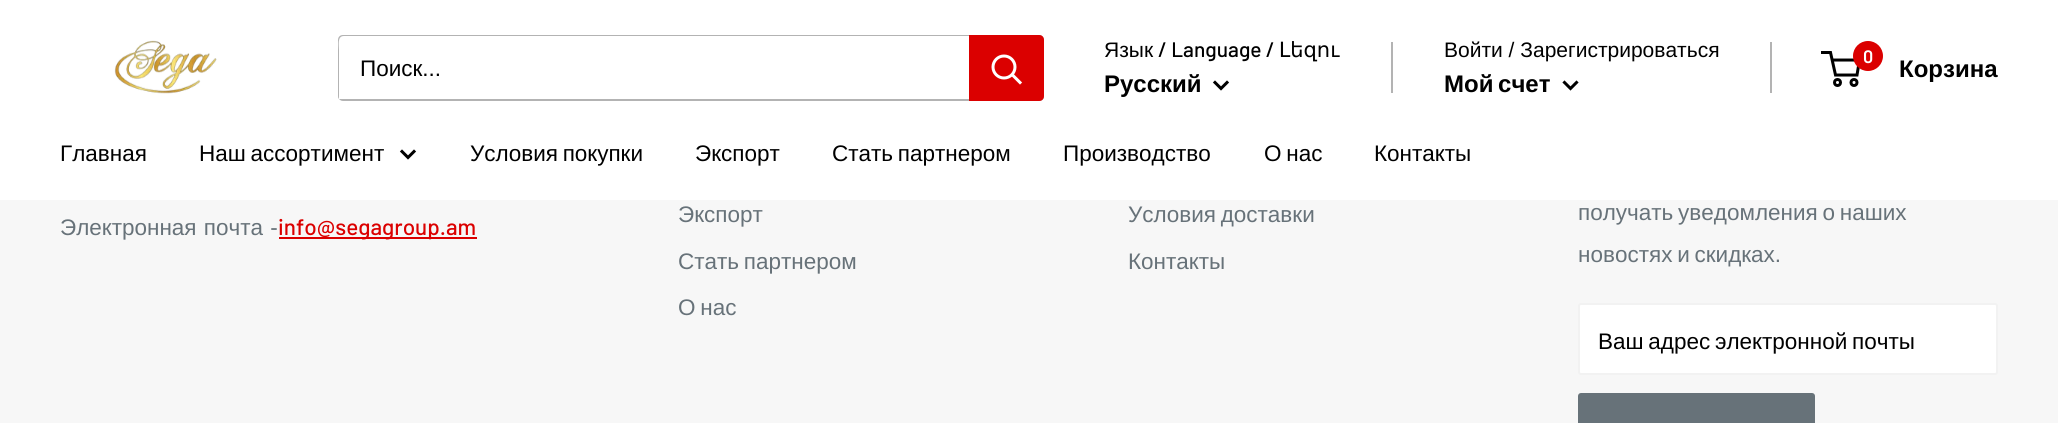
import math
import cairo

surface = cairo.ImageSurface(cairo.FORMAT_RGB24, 2058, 423)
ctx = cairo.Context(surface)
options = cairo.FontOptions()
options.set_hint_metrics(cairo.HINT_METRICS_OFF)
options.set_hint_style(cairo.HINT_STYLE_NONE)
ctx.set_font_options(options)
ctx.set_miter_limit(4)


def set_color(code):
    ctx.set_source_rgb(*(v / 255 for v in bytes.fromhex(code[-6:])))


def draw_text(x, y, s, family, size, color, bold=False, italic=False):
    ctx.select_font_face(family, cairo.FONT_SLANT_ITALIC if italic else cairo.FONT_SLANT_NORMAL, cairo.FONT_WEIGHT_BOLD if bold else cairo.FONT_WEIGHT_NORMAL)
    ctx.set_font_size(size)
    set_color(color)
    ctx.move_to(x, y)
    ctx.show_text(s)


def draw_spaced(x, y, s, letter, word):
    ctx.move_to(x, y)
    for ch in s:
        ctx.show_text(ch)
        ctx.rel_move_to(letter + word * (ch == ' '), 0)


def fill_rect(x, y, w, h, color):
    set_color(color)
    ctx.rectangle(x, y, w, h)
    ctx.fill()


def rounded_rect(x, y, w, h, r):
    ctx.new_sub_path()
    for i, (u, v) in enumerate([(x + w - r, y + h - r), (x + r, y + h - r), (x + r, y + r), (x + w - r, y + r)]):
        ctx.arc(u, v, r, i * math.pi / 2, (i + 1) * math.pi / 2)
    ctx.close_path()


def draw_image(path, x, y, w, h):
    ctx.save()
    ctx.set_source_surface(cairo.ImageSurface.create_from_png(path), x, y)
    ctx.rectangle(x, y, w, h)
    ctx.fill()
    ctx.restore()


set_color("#f7f7f7")
ctx.paint()
fill_rect(0, 0, 2058, 200, "#ffffff")
draw_image("assets/img1.png", 114, 40, 103, 54)
set_color("#b3b3b3")
ctx.new_path()
ctx.move_to(339, 99)
ctx.curve_to(340, 100, 341, 101, 343, 101)
ctx.line_to(1039, 101)
ctx.curve_to(1042, 101, 1044, 99, 1044, 96)
ctx.line_to(1044, 40)
ctx.curve_to(1044, 38, 1043, 37, 1042, 36)
ctx.line_to(1042, 38)
ctx.line_to(1042, 94)
ctx.curve_to(1042, 97, 1040, 99, 1038, 99)
ctx.close_path()
ctx.fill()
ctx.new_path()
ctx.move_to(344, 36)
ctx.line_to(1042, 36)
ctx.curve_to(1041, 35, 1040, 35, 1039, 35)
ctx.line_to(343, 35)
ctx.curve_to(340, 35, 338, 37, 338, 40)
ctx.line_to(338, 96)
ctx.curve_to(338, 97, 338, 98, 339, 99)
ctx.line_to(339, 50)
ctx.curve_to(339, 45, 337, 36, 344, 36)
ctx.close_path()
ctx.fill()
draw_text(360, 76, "Поиск...", "Liberation Sans", 22.5, "#000000")
set_color("#db0000")
ctx.new_path()
ctx.move_to(969, 35)
ctx.line_to(1039, 35)
ctx.curve_to(1042, 35, 1044, 37, 1044, 40)
ctx.line_to(1044, 96)
ctx.curve_to(1044, 99, 1042, 101, 1039, 101)
ctx.line_to(969, 101)
ctx.close_path()
ctx.fill()
ctx.new_path()
ctx.move_to(1020, 82.5)
ctx.line_to(1012.5, 75)
set_color("#ffffff")
ctx.set_line_width(3)
ctx.set_line_cap(cairo.LINE_CAP_SQUARE)
ctx.stroke()
ctx.arc(1004, 67, 11, 0, 2 * math.pi)
ctx.set_line_cap(cairo.LINE_CAP_BUTT)
ctx.stroke()
draw_text(1104, 57, "Язык", "Liberation Sans", 21, "#000000")
draw_text(1158, 57, "/ Language /", "Barlow Medium", 21, "#000000")
draw_text(1279, 57, "Լեզու", "DejaVu Sans", 21, "#000000")
draw_text(1104, 92, "Русский", "Liberation Sans", 24, "#000000", bold=True)
ctx.new_path()
ctx.move_to(1227, 82.5)
ctx.line_to(1221, 88.5)
ctx.line_to(1215, 82.5)
ctx.set_line_cap(cairo.LINE_CAP_SQUARE)
ctx.stroke()
fill_rect(1391, 42, 2, 51, "#b3b3b3")
draw_text(1444, 57, "Войти / Зарегистрироваться", "Liberation Sans", 21, "#000000")
fill_rect(1770, 42, 2, 51, "#b3b3b3")
ctx.select_font_face("Liberation Sans", cairo.FONT_SLANT_NORMAL, cairo.FONT_WEIGHT_BOLD)
ctx.set_font_size(24)
set_color("#000000")
draw_spaced(1444, 92, "Мой счет", 0, -2)
ctx.new_path()
ctx.move_to(1576.5, 82.5)
ctx.line_to(1570.5, 88.5)
ctx.line_to(1564.5, 82.5)
ctx.stroke()
ctx.arc(1837.5, 82.5, 3, 0, 2 * math.pi)
ctx.set_line_cap(cairo.LINE_CAP_BUTT)
ctx.stroke()
ctx.arc(1854, 82.5, 3, 0, 2 * math.pi)
ctx.stroke()
ctx.new_path()
ctx.move_to(1832, 60)
ctx.line_to(1859.5, 60)
ctx.line_to(1857, 75)
ctx.line_to(1835.5, 75)
ctx.line_to(1830.5, 52.5)
ctx.line_to(1821, 52.5)
ctx.stroke()
set_color("#db0000")
ctx.arc(1868, 56, 15, 0, 2 * math.pi)
ctx.fill()
draw_text(1863, 63, "0", "Barlow SemiBold", 18, "#ffffff")
draw_text(1899, 77, "Корзина", "Liberation Sans", 24, "#000000", bold=True)
draw_text(60, 161, "Главная", "Liberation Sans", 22.5, "#000000")
draw_spaced(199, 161, "Наш ассортимент", 0, -1.5)
ctx.new_path()
ctx.move_to(414, 151.5)
ctx.line_to(408, 157.5)
ctx.line_to(402, 151.5)
ctx.set_line_cap(cairo.LINE_CAP_SQUARE)
ctx.stroke()
draw_spaced(470, 161, "Условия покупки", 0, -1.5)
draw_text(695, 161, "Экспорт", "Liberation Sans", 22.5, "#000000")
draw_spaced(832, 161, "Стать партнером", 0, -1.5)
draw_text(1063, 161, "Производство", "Liberation Sans", 22.5, "#000000")
draw_spaced(1264, 161, "О нас", 0, -1.5)
draw_text(1374, 161, "Контакты", "Liberation Sans", 22.5, "#000000")
set_color("#677279")
draw_spaced(60, 235, "Электронная почта -", 0, 1)
fill_rect(279, 237, 198, 2, "#db0000")
draw_text(278, 235, "info@segagroup.am", "Barlow Medium", 22.5, "#db0000")
draw_text(678, 222, "Экспорт", "Liberation Sans", 22.5, "#677279")
draw_spaced(678, 269, "Стать партнером", 0, -1.5)
draw_spaced(678, 315, "О нас", 0, -1.5)
draw_spaced(1128, 222, "Условия доставки", 0, -1.5)
draw_text(1128, 269, "Контакты", "Liberation Sans", 22.5, "#677279")
draw_spaced(1578, 220, "получать уведомления о наших", 0, -1.5)
draw_spaced(1578, 262, "новостях и скидках.", 0, -1.5)
set_color("#ffffff")
rounded_rect(1579, 304, 418, 70, 2)
ctx.fill_preserve()
set_color("#f2f2f2")
ctx.set_line_width(2)
ctx.set_line_cap(cairo.LINE_CAP_BUTT)
ctx.stroke()
set_color("#000000")
draw_spaced(1598, 349, "Ваш адрес электронной почты", 0, -1.5)
set_color("#677279")
rounded_rect(1578, 393, 237, 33, 3)
ctx.fill()
surface.write_to_png("output.png")
